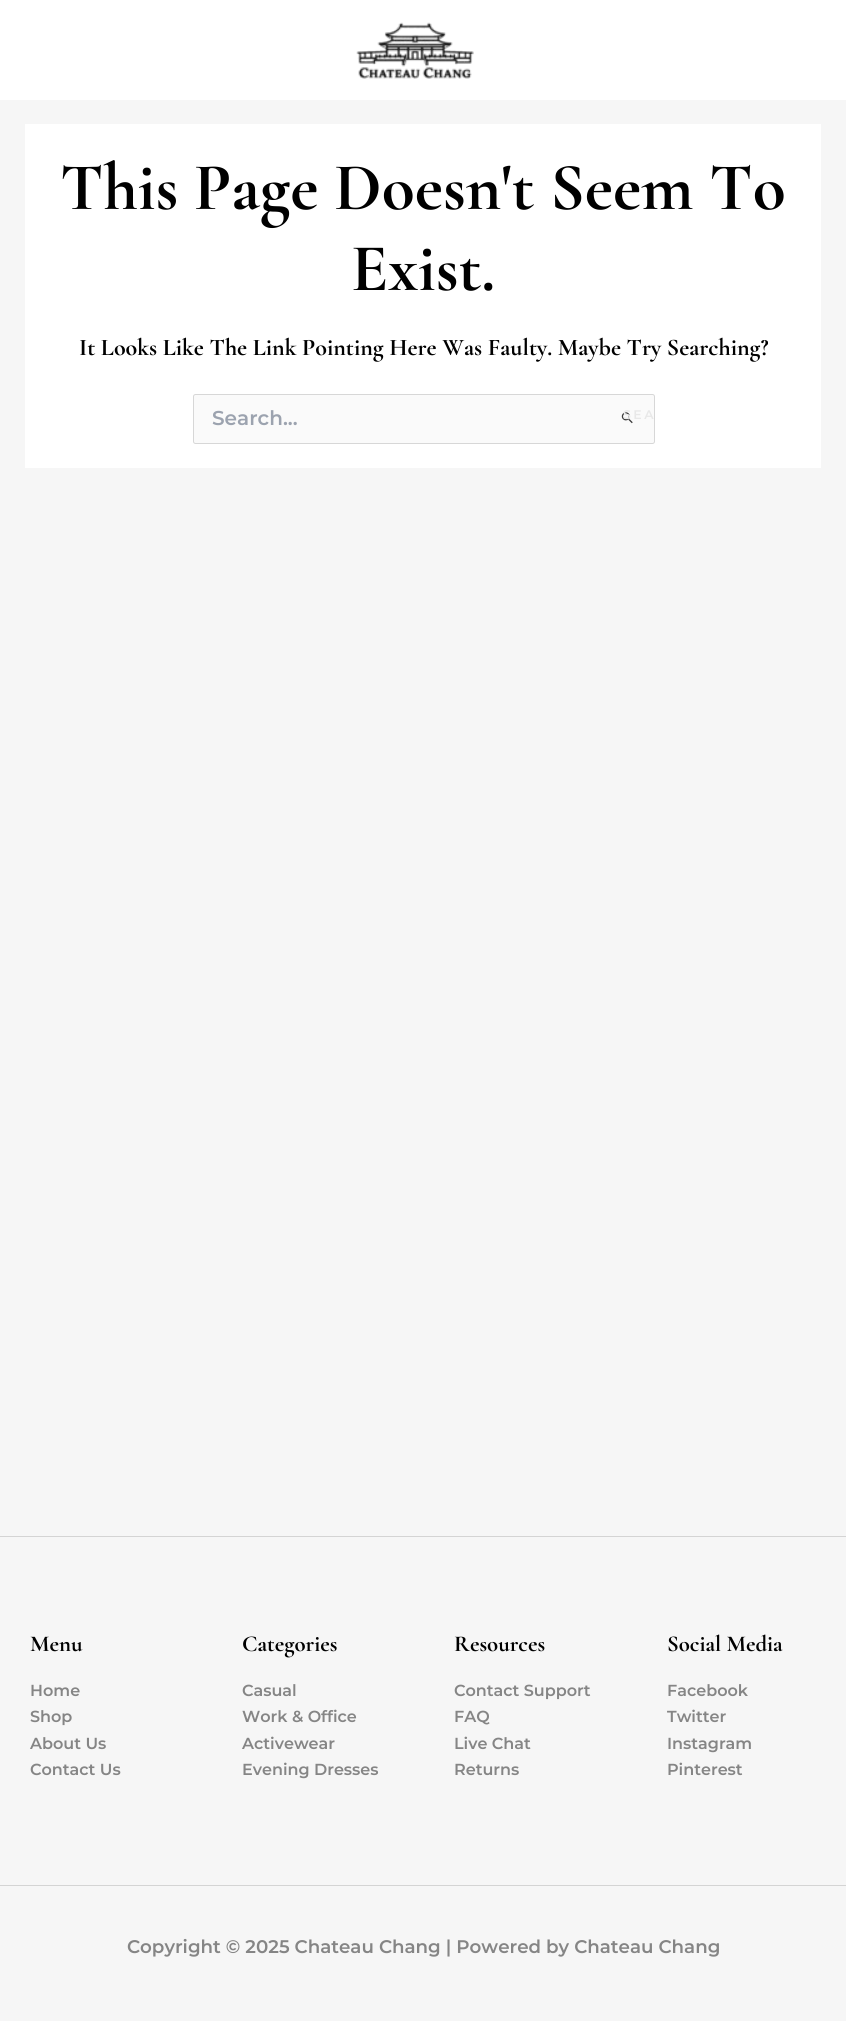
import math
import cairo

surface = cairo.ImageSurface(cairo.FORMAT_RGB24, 846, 2021)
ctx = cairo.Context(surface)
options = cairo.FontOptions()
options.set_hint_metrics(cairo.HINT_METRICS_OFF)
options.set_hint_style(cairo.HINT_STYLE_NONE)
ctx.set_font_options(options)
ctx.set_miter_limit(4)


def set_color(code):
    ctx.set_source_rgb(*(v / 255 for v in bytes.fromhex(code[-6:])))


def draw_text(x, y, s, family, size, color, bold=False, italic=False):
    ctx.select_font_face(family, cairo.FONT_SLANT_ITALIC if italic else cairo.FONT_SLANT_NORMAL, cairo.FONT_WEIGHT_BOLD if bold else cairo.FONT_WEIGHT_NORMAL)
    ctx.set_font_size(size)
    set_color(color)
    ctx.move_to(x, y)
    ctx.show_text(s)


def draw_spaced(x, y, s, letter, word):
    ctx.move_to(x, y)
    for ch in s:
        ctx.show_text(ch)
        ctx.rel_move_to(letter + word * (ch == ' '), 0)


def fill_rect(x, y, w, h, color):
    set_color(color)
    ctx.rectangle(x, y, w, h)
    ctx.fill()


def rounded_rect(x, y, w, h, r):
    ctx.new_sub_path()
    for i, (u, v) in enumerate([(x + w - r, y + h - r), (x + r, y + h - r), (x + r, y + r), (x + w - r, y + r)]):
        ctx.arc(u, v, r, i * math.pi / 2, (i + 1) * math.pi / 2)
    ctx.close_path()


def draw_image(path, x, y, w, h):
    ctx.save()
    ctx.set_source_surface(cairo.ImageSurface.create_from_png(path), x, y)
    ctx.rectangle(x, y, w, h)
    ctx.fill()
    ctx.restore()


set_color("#f6f6f6")
ctx.paint()
fill_rect(0, 0, 846, 100, "#ffffff")
draw_image("assets/img1.png", 356, 22, 118, 57)
fill_rect(25, 124, 796, 344, "#ffffff")
draw_text(60, 209, "This Page Doesn't Seem To", "Cormorant Garamond Light", 67.5, "#000000")
draw_text(351, 290, "Exist.", "Cormorant Garamond Light", 67.5, "#000000")
draw_text(79, 355, "It Looks Like The Link Pointing Here Was Faulty. Maybe Try Searching?", "Cormorant Garamond Light", 23.95, "#000000")
set_color("#fafafa")
rounded_rect(193.5, 394.5, 461, 49, 2)
ctx.fill_preserve()
set_color("#d7d7d7")
ctx.set_line_width(1)
ctx.stroke()
draw_text(212, 425, "Search...", "Montserrat Thin", 20, "#9ca3af")
draw_image("assets/img2.png", 621, 412, 12, 12)
ctx.set_font_size(12.5)
set_color("#e8e8e8")
draw_spaced(623, 419, "SEA", 2.5, 0)
fill_rect(0, 1536, 846, 1, "#d4d4d4")
draw_text(30, 1651, "Menu", "Cormorant Garamond Light", 22.75, "#000000")
draw_text(30, 1696, "Home", "Montserrat Thin", 16, "#858585")
draw_text(30, 1722, "Shop", "Montserrat Thin", 16, "#858585")
draw_text(30, 1749, "About Us", "Montserrat Thin", 16, "#858585")
draw_text(30, 1775, "Contact Us", "Montserrat Thin", 16, "#858585")
draw_text(242, 1651, "Categories", "Cormorant Garamond Light", 22.75, "#000000")
draw_text(242, 1696, "Casual", "Montserrat Thin", 16, "#858585")
draw_text(242, 1722, "Work & Office", "Montserrat Thin", 16, "#858585")
draw_text(242, 1749, "Activewear", "Montserrat Thin", 16, "#858585")
draw_text(242, 1775, "Evening Dresses", "Montserrat Thin", 16, "#858585")
draw_text(454, 1651, "Resources", "Cormorant Garamond Light", 22.75, "#000000")
draw_text(454, 1696, "Contact Support", "Montserrat Thin", 16, "#858585")
draw_text(454, 1722, "FAQ", "Montserrat Thin", 16, "#858585")
draw_text(454, 1749, "Live Chat", "Montserrat Thin", 16, "#858585")
draw_text(454, 1775, "Returns", "Montserrat Thin", 16, "#858585")
draw_text(667, 1651, "Social Media", "Cormorant Garamond Light", 22.75, "#000000")
draw_text(667, 1696, "Facebook", "Montserrat Thin", 16, "#858585")
draw_text(667, 1722, "Twitter", "Montserrat Thin", 16, "#858585")
draw_text(667, 1749, "Instagram", "Montserrat Thin", 16, "#858585")
draw_text(667, 1775, "Pinterest", "Montserrat Thin", 16, "#858585")
fill_rect(0, 1885, 846, 1, "#d4d4d4")
draw_text(127, 1953, "Copyright © 2025 Chateau Chang | Powered by Chateau Chang", "Montserrat Thin", 18.25, "#858585")
surface.write_to_png("output.png")
